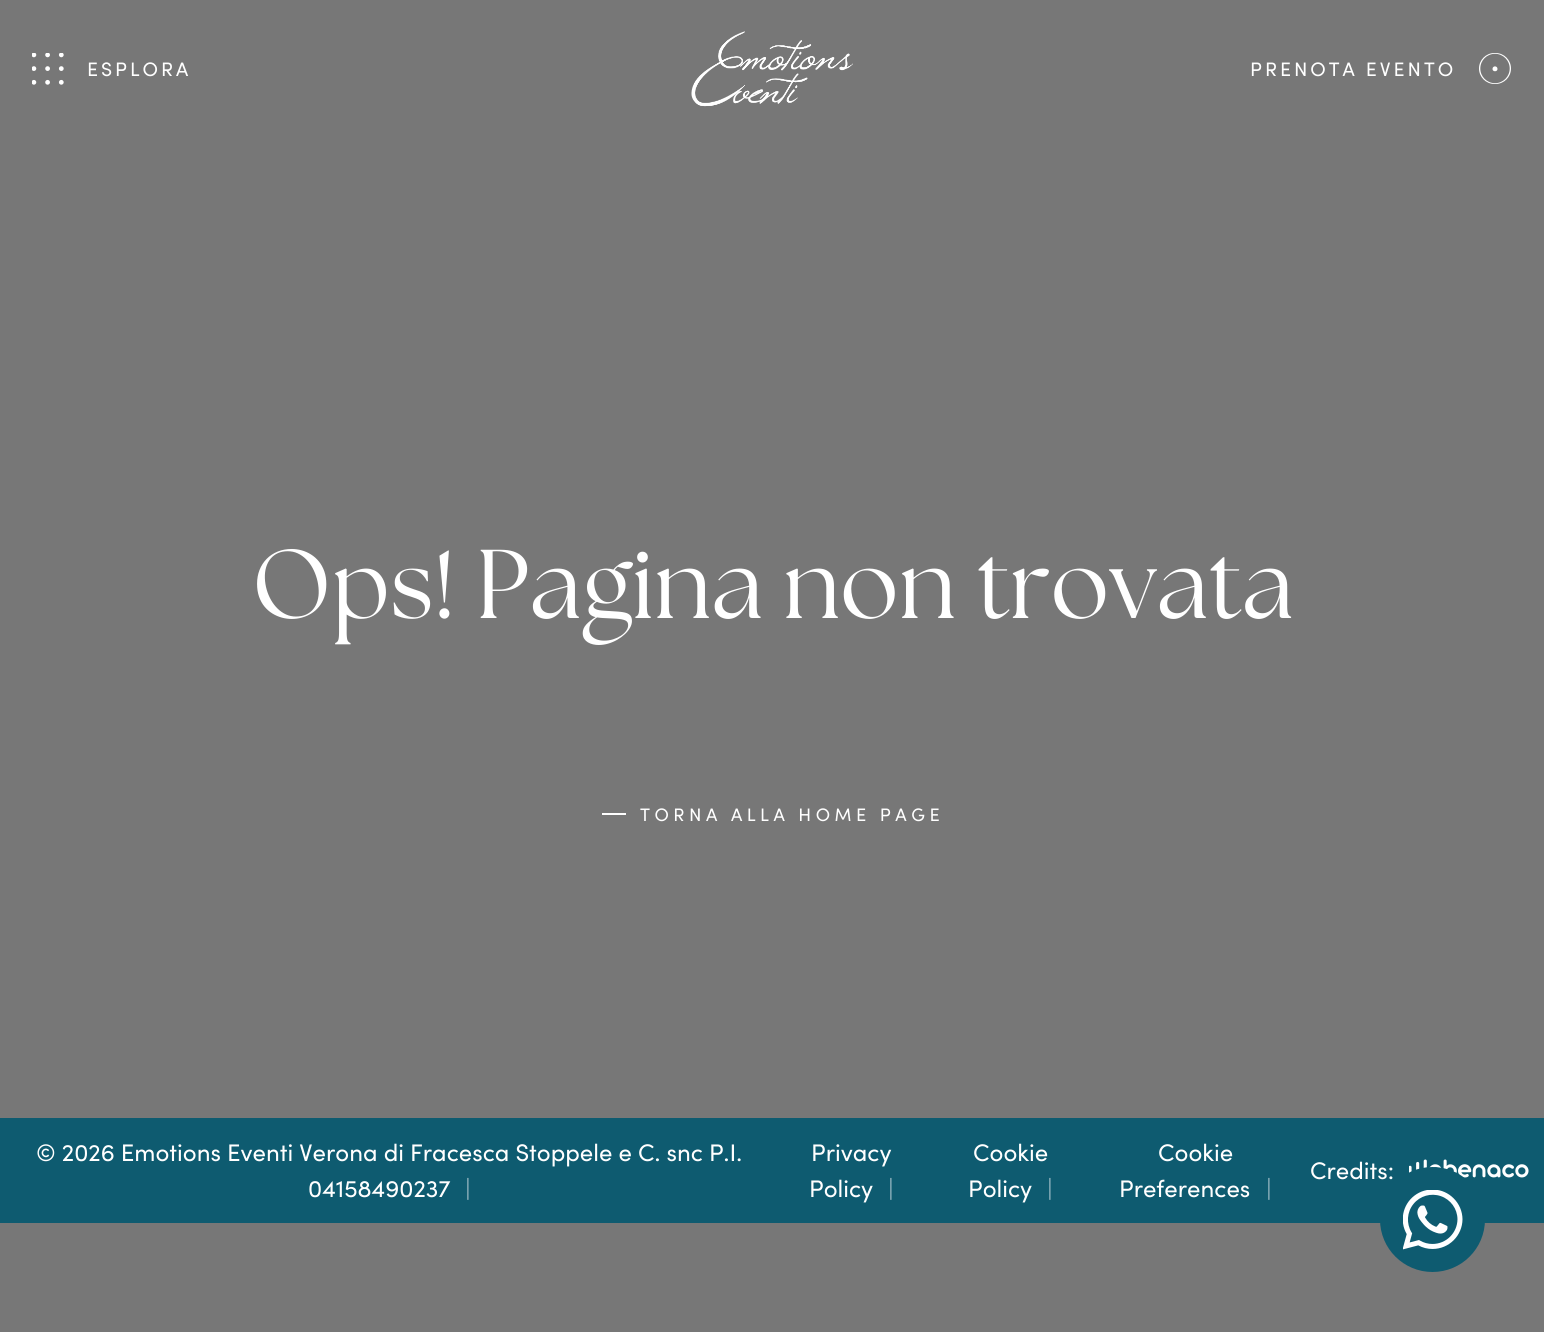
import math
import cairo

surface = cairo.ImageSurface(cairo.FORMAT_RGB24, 1544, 1332)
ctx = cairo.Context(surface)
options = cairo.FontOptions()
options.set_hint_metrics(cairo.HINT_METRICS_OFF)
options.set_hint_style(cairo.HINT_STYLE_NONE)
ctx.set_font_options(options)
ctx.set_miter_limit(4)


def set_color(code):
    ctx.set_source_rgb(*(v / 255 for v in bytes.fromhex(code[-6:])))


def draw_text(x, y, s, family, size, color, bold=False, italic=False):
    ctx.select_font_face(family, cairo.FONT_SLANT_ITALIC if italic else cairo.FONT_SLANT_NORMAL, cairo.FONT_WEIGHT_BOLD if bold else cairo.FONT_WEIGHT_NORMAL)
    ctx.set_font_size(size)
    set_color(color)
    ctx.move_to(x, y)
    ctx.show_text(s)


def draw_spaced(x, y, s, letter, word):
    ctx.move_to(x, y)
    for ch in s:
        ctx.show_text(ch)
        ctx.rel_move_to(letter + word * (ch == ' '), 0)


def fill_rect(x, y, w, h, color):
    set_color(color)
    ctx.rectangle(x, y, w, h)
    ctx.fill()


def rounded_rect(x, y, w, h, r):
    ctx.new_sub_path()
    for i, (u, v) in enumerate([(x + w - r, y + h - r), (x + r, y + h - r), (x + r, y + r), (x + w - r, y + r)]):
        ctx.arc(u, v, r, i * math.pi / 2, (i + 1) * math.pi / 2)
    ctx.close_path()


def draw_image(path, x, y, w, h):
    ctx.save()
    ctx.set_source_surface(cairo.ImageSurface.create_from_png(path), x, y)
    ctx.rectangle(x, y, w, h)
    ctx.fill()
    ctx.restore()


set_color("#777777")
ctx.paint()
draw_image("assets/img1.png", 32, 53, 32, 32)
ctx.select_font_face("Sofia")
ctx.set_font_size(19.5)
set_color("#ffffff")
draw_spaced(87, 76, "ESPLORA", 3, 0)
draw_image("assets/img2.png", 691, 31, 162, 76)
draw_spaced(1250, 76, "PRENOTA EVENTO", 3, 0)
ctx.new_path()
ctx.move_to(1497.5, 69)
ctx.curve_to(1497.5, 65.5, 1492.5, 65.5, 1492.5, 69)
ctx.curve_to(1492.5, 72, 1497.5, 72, 1497.5, 69)
ctx.fill()
ctx.save()
rounded_rect(1479, 53, 32, 31, 15.5)
ctx.clip()
ctx.arc(1495, 68.5, 15.5, 0, 2 * math.pi)
ctx.set_line_width(1.6)
ctx.stroke()
ctx.restore()
draw_text(252, 618, "Ops! Pagina non trovata", "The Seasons", 97.5, "#ffffff")
fill_rect(602, 813, 24, 2, "#ffffff")
ctx.select_font_face("Sofia")
ctx.set_font_size(18.1)
draw_spaced(640, 821, "TORNA ALLA HOME PAGE", 4.5, 0)
fill_rect(0, 1118, 1544, 105, "#0e5b70")
draw_text(36, 1161, "© 2026 Emotions Eventi Verona di Fracesca Stoppele e C. snc P.I.", "Sofia", 24, "#ffffff")
draw_text(308, 1197, "04158490237", "Sofia", 24, "#ffffff")
draw_text(465, 1197, "|", "Sofia", 24, "#87adb8")
draw_text(811, 1161, "Privacy", "Sofia", 24, "#ffffff")
draw_text(809, 1197, "Policy", "Sofia", 24, "#ffffff")
draw_text(888, 1197, "|", "Sofia", 24, "#87adb8")
draw_text(973, 1161, "Cookie", "Sofia", 24, "#ffffff")
draw_text(968, 1197, "Policy", "Sofia", 24, "#ffffff")
draw_text(1047, 1197, "|", "Sofia", 24, "#87adb8")
draw_text(1158, 1161, "Cookie", "Sofia", 24, "#ffffff")
draw_text(1119, 1197, "Preferences", "Sofia", 24, "#ffffff")
draw_text(1266, 1197, "|", "Sofia", 24, "#87adb8")
draw_text(1310, 1179, "Credits:", "Sofia", 24, "#ffffff")
draw_image("assets/img3.png", 1409, 1159, 120, 19)
set_color("#0e5b70")
ctx.arc(1432.5, 1219.5, 52.5, 0, 2 * math.pi)
ctx.fill()
draw_image("assets/img4.png", 1403, 1190, 60, 60)
surface.write_to_png("output.png")
